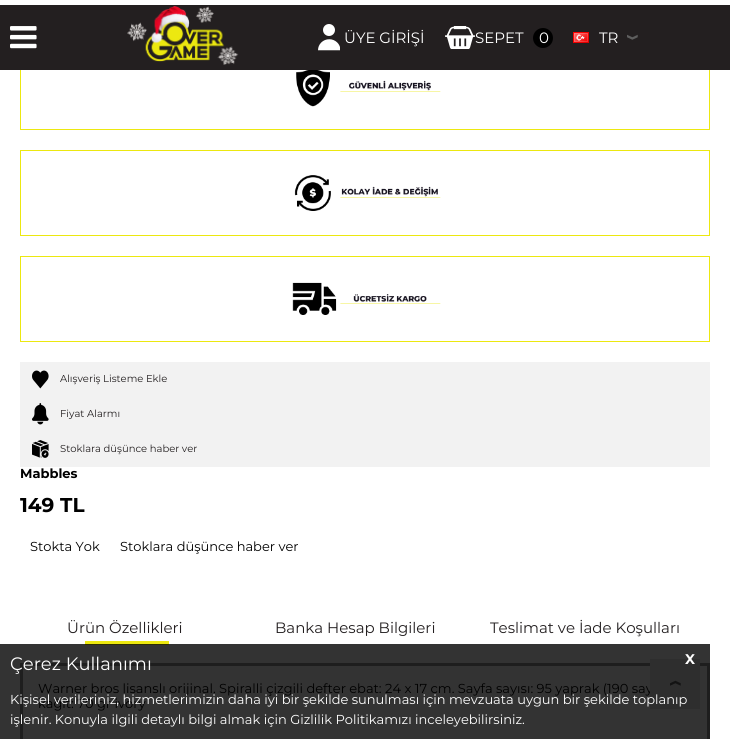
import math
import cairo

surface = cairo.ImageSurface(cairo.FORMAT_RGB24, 730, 739)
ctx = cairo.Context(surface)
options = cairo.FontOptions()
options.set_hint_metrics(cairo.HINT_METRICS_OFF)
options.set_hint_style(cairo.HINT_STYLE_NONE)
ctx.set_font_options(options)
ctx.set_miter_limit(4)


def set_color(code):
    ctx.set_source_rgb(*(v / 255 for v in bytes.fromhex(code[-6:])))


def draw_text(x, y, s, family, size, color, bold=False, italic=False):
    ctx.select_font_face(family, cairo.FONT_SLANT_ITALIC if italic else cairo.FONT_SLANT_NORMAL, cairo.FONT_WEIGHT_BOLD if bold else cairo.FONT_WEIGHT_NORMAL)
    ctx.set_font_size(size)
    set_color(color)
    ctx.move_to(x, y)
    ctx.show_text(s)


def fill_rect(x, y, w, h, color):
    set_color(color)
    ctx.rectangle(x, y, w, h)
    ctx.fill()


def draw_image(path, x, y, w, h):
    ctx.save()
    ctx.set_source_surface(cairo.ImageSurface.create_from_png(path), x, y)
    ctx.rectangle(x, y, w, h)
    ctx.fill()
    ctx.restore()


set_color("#ffffff")
ctx.paint()
fill_rect(0, 644, 710, 95, "#333333")
ctx.rectangle(20.5, 44.5, 689, 85)
set_color("#ece810")
ctx.set_line_width(1)
ctx.stroke()
fill_rect(0, 5, 730, 65, "#231f20")
draw_image("assets/img1.png", 10, 26, 27, 23)
draw_image("assets/img2.png", 127, 6, 112, 59)
draw_image("assets/img3.png", 318, 24, 22, 27)
draw_text(344, 43, "ÜYE GİRİŞİ", "Montserrat", 15, "#ffffff")
draw_image("assets/img4.png", 445, 26, 30, 23)
draw_text(475, 43, "SEPET", "Montserrat", 15, "#ffffff")
set_color("#000000")
ctx.new_path()
ctx.arc(543, 38, 10, 0, 2 * math.pi)
ctx.fill()
draw_text(539, 43, "0", "Montserrat", 15, "#ffffff")
draw_image("assets/img5.png", 573, 32, 16, 11)
draw_text(599, 43, "TR", "Montserrat", 15, "#ffffff")
draw_image("assets/img6.png", 627, 34, 11, 6)
ctx.rectangle(21.5, 664.5, 687, 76)
set_color("#1e1e1e")
ctx.set_line_width(3)
ctx.stroke()
draw_text(38, 693, "Warner bros lisanslı orijinal. Spiralli çizgili defter ebat: 24 x 17 cm. Sayfa sayısı: 95 yaprak (190 say", "Montserrat", 13, "#000000")
fill_rect(650, 659, 50, 50, "#2e2e2e")
draw_image("assets/img7.png", 670, 680, 11, 6)
draw_image("assets/img8.png", 296, 70, 145, 37)
ctx.rectangle(20.5, 150.5, 689, 85)
set_color("#ece810")
ctx.set_line_width(1)
ctx.stroke()
draw_image("assets/img9.png", 294, 175, 147, 36)
ctx.rectangle(20.5, 256.5, 689, 85)
ctx.stroke()
draw_image("assets/img10.png", 292, 282, 149, 33)
fill_rect(20, 362, 690, 105, "#f2f2f2")
draw_image("assets/img11.png", 32, 370, 17, 19)
draw_text(60, 382, "Alışveriş Listeme Ekle", "Montserrat", 10, "#231f20")
draw_image("assets/img12.png", 32, 403, 17, 22)
draw_text(60, 417, "Fiyat Alarmı", "Montserrat", 10, "#231f20")
draw_image("assets/img13.png", 32, 440, 17, 18)
draw_text(60, 452, "Stoklara düşünce haber ver", "Montserrat", 10, "#231f20")
draw_text(20, 478, "Mabbles", "Montserrat", 13, "#000000", bold=True)
draw_text(20, 512, "149 TL", "Montserrat", 20, "#000000", bold=True)
draw_text(30, 551, "Stokta Yok", "Montserrat", 13, "#000000")
draw_text(120, 551, "Stoklara düşünce haber ver", "Montserrat", 13, "#000000")
draw_text(67, 633, "Ürün Özellikleri", "Montserrat", 15, "#231f20")
fill_rect(85, 641, 84, 3, "#ece810")
fill_rect(85, 644, 84, 1, "#2f2e03")
draw_text(275, 633, "Banka Hesap Bilgileri", "Montserrat", 15, "#231f20")
draw_text(490, 633, "Teslimat ve İade Koşulları", "Montserrat", 15, "#231f20")
draw_text(38, 708, "kağıt: 70 gr ivory", "Montserrat", 13, "#000000")
draw_text(10, 670, "Çerez Kullanımı", "Montserrat", 18, "#ffffff")
draw_text(685, 664, "X", "Montserrat", 14, "#ffffff", bold=True)
draw_text(10, 704, "Kişisel verileriniz, hizmetlerimizin daha iyi bir şekilde sunulması için mevzuata uygun bir şekilde toplanıp", "Montserrat", 13, "#ffffff")
draw_text(10, 724, "işlenir. Konuyla ilgili detaylı bilgi almak için Gizlilik Politikamızı inceleyebilirsiniz.", "Montserrat", 13, "#ffffff")
surface.write_to_png("output.png")
